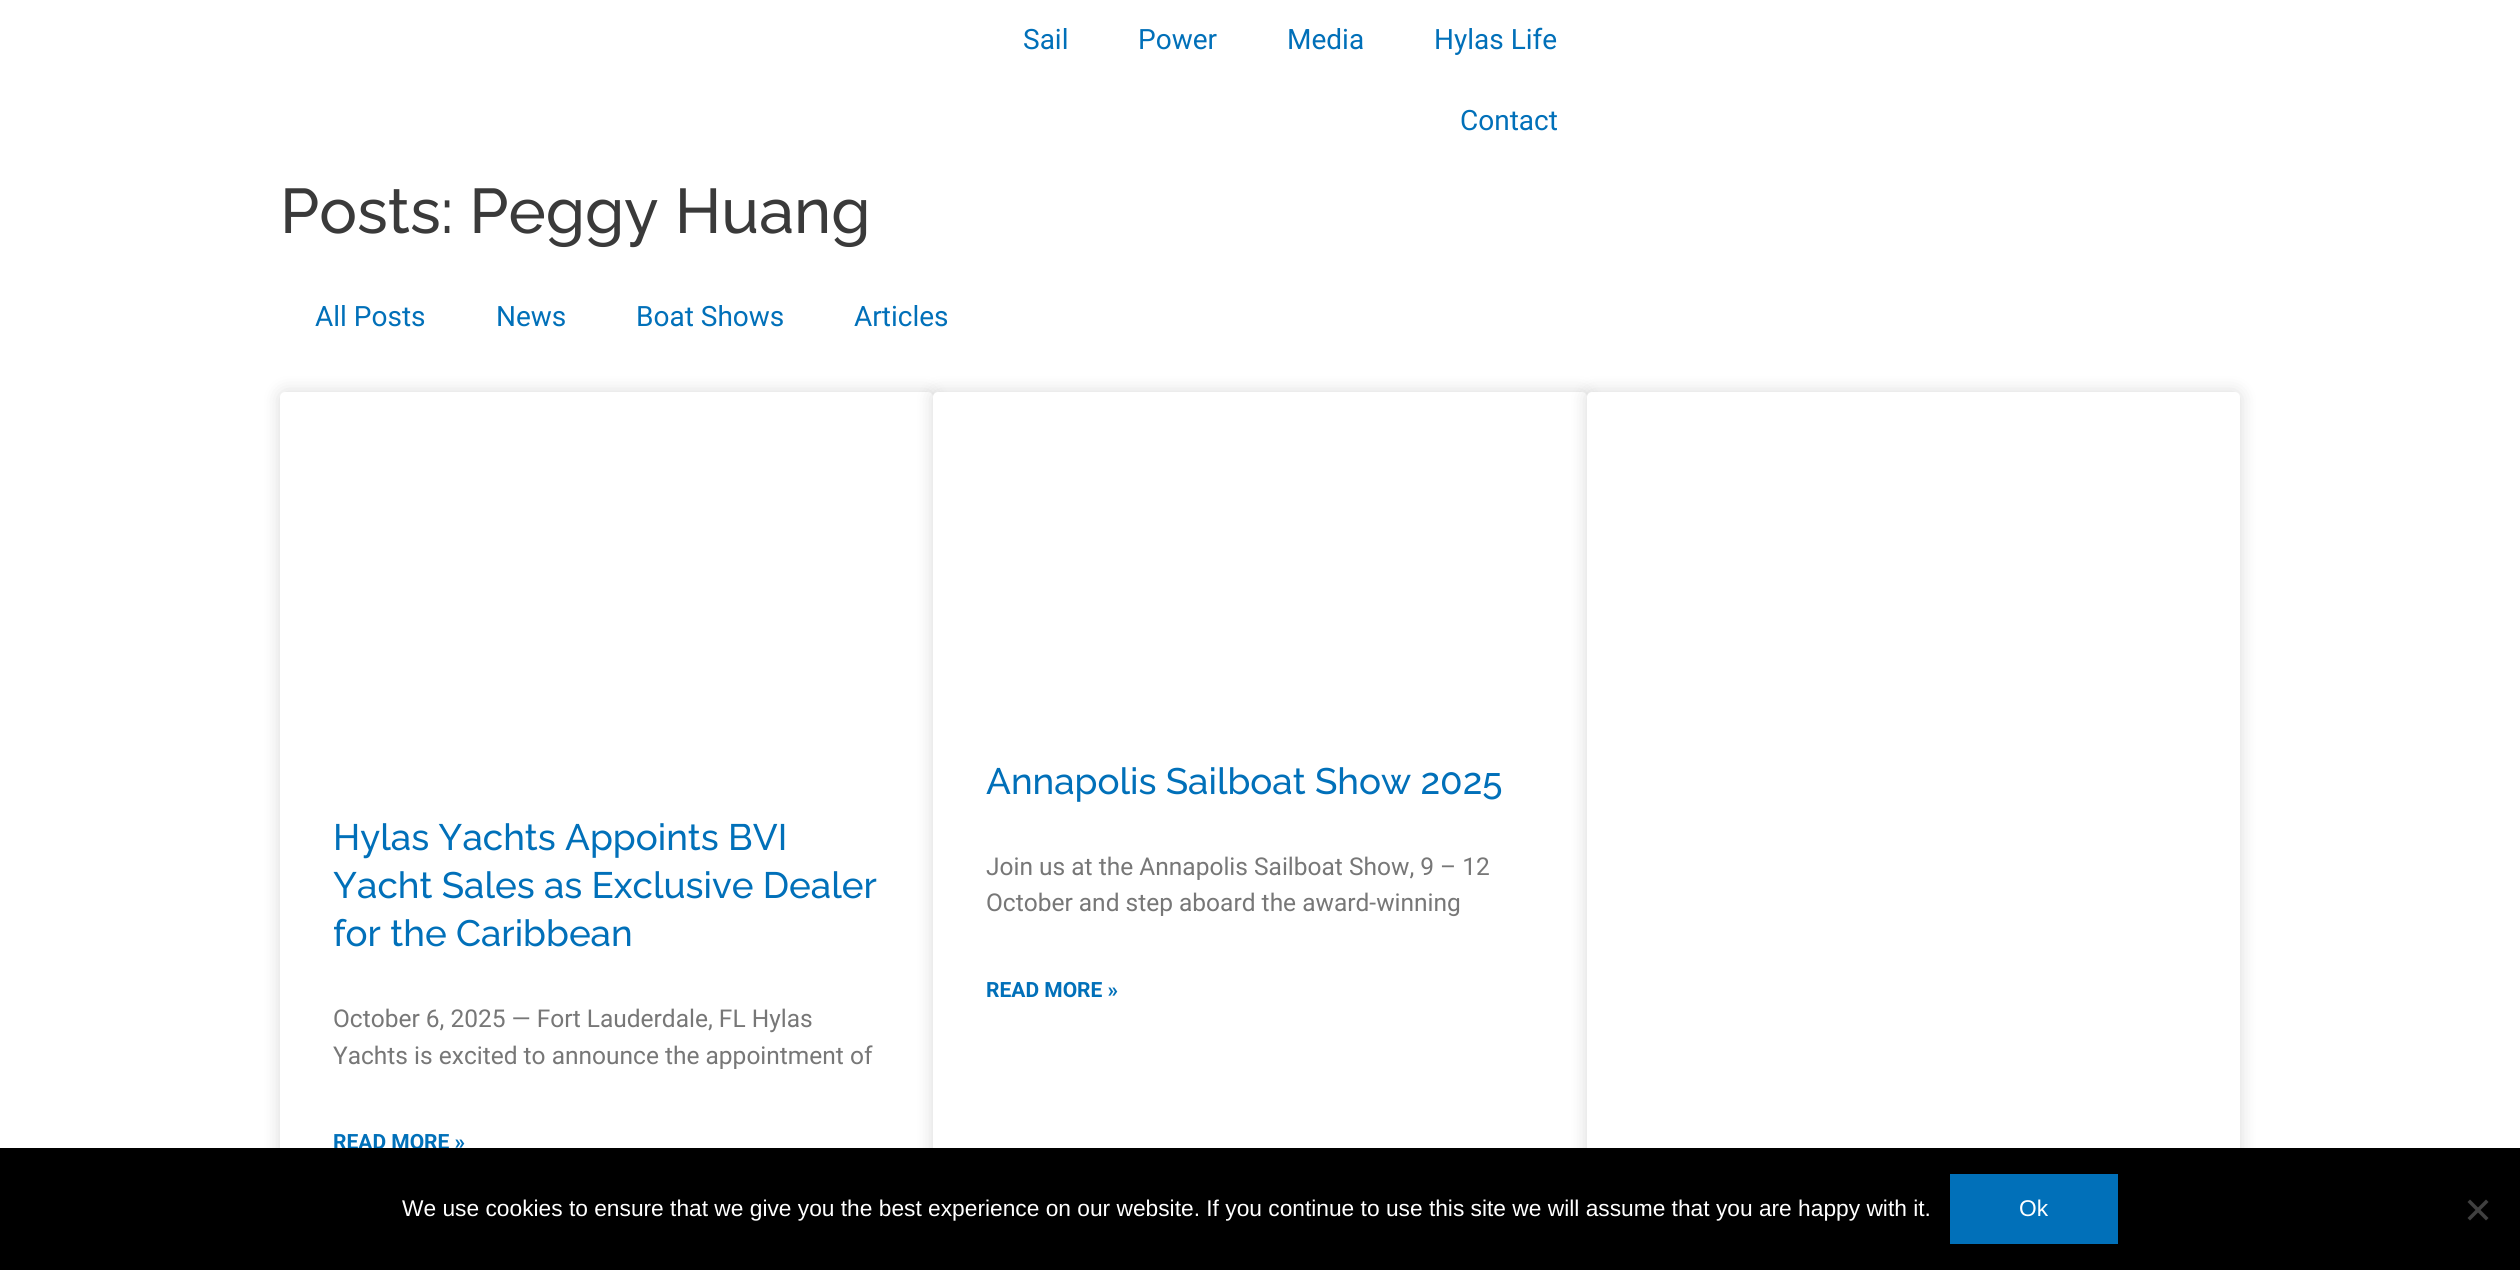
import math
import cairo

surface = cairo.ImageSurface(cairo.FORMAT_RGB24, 2520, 1270)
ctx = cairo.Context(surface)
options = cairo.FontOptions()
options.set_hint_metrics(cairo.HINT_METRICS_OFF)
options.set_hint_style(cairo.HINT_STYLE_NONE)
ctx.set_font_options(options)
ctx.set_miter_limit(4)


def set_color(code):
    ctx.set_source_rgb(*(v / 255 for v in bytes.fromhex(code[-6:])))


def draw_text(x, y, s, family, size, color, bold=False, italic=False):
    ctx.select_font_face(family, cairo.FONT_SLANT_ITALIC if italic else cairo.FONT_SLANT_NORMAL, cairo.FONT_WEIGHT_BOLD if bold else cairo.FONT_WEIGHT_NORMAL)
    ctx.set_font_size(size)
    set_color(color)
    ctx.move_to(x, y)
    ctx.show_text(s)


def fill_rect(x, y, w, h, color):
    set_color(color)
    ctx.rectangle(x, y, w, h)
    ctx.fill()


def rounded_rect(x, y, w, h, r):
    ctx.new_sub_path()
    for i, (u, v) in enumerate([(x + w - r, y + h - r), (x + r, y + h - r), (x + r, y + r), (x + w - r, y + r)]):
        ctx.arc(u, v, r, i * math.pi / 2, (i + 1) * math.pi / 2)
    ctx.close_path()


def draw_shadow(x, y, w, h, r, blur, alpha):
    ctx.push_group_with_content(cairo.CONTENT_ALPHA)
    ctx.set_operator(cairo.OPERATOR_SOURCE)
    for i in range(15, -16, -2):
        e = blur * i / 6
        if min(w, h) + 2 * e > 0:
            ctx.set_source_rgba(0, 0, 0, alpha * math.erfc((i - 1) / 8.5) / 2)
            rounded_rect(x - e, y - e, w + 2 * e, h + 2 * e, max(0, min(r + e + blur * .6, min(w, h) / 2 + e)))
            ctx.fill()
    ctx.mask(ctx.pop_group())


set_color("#ffffff")
ctx.paint()
draw_text(1023, 49, "Sail", "Roboto", 28, "#0170b9")
draw_text(1138, 49, "Power", "Roboto", 28, "#0170b9")
draw_text(1287, 49, "Media", "Roboto", 28, "#0170b9")
draw_text(1434, 49, "Hylas Life", "Roboto", 28, "#0170b9")
draw_text(1460, 130, "Contact", "Roboto", 28, "#0170b9")
draw_text(280, 233, "Posts: Peggy Huang", "Raleway Thin", 63, "#3a3a3a")
draw_text(315, 326, "All Posts", "Roboto", 28, "#0170b9")
draw_text(496, 326, "News", "Roboto", 28, "#0170b9")
draw_text(636, 326, "Boat Shows", "Roboto", 28, "#0170b9")
draw_text(854, 326, "Articles", "Roboto", 28, "#0170b9")
set_color("#000000")
draw_shadow(280, 392, 653, 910, 5, 9, 0.15)
set_color("#ffffff")
rounded_rect(280, 392, 653, 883, 5)
ctx.fill()
draw_text(333, 850, "Hylas Yachts Appoints BVI", "Raleway Thin", 36.75, "#0170b9")
draw_text(333, 898, "Yacht Sales as Exclusive Dealer", "Raleway Thin", 36.75, "#0170b9")
draw_text(333, 946, "for the Caribbean", "Raleway Thin", 36.75, "#0170b9")
draw_text(333, 1027, "October 6, 2025 — Fort Lauderdale, FL Hylas", "Roboto", 24.5, "#777777")
draw_text(333, 1064, "Yachts is excited to announce the appointment of", "Roboto", 24.5, "#777777")
draw_text(333, 1149, "READ MORE »", "Roboto", 21, "#0170b9", bold=True)
set_color("#000000")
draw_shadow(933, 392, 654, 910, 5, 9, 0.15)
set_color("#ffffff")
rounded_rect(933, 392, 654, 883, 5)
ctx.fill()
draw_text(986, 794, "Annapolis Sailboat Show 2025", "Raleway Thin", 36.75, "#0170b9")
draw_text(986, 875, "Join us at the Annapolis Sailboat Show, 9 – 12", "Roboto", 24.5, "#777777")
draw_text(986, 911, "October and step aboard the award-winning", "Roboto", 24.5, "#777777")
draw_text(986, 997, "READ MORE »", "Roboto", 21, "#0170b9", bold=True)
set_color("#000000")
draw_shadow(1587, 392, 653, 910, 5, 9, 0.15)
set_color("#ffffff")
rounded_rect(1587, 392, 653, 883, 5)
ctx.fill()
fill_rect(0, 1148, 2520, 122, "#000000")
draw_text(402, 1216, "We use cookies to ensure that we give you the best experience on our website. If you continue to use this site we will assume that you are happy with it.", "Liberation Sans", 22.75, "#ffffff")
fill_rect(1950, 1174, 168, 70, "#0170b9")
draw_text(2019, 1216, "Ok", "Liberation Sans", 22.75, "#ffffff")
set_color("#404040")
ctx.new_path()
ctx.move_to(2486, 1199.5)
ctx.line_to(2488.5, 1202)
ctx.line_to(2470, 1220.5)
ctx.line_to(2467.5, 1218)
ctx.close_path()
ctx.fill()
ctx.new_path()
ctx.move_to(2467.5, 1202)
ctx.line_to(2470, 1199.5)
ctx.line_to(2488.5, 1218)
ctx.line_to(2486, 1220.5)
ctx.close_path()
ctx.fill()
surface.write_to_png("output.png")
